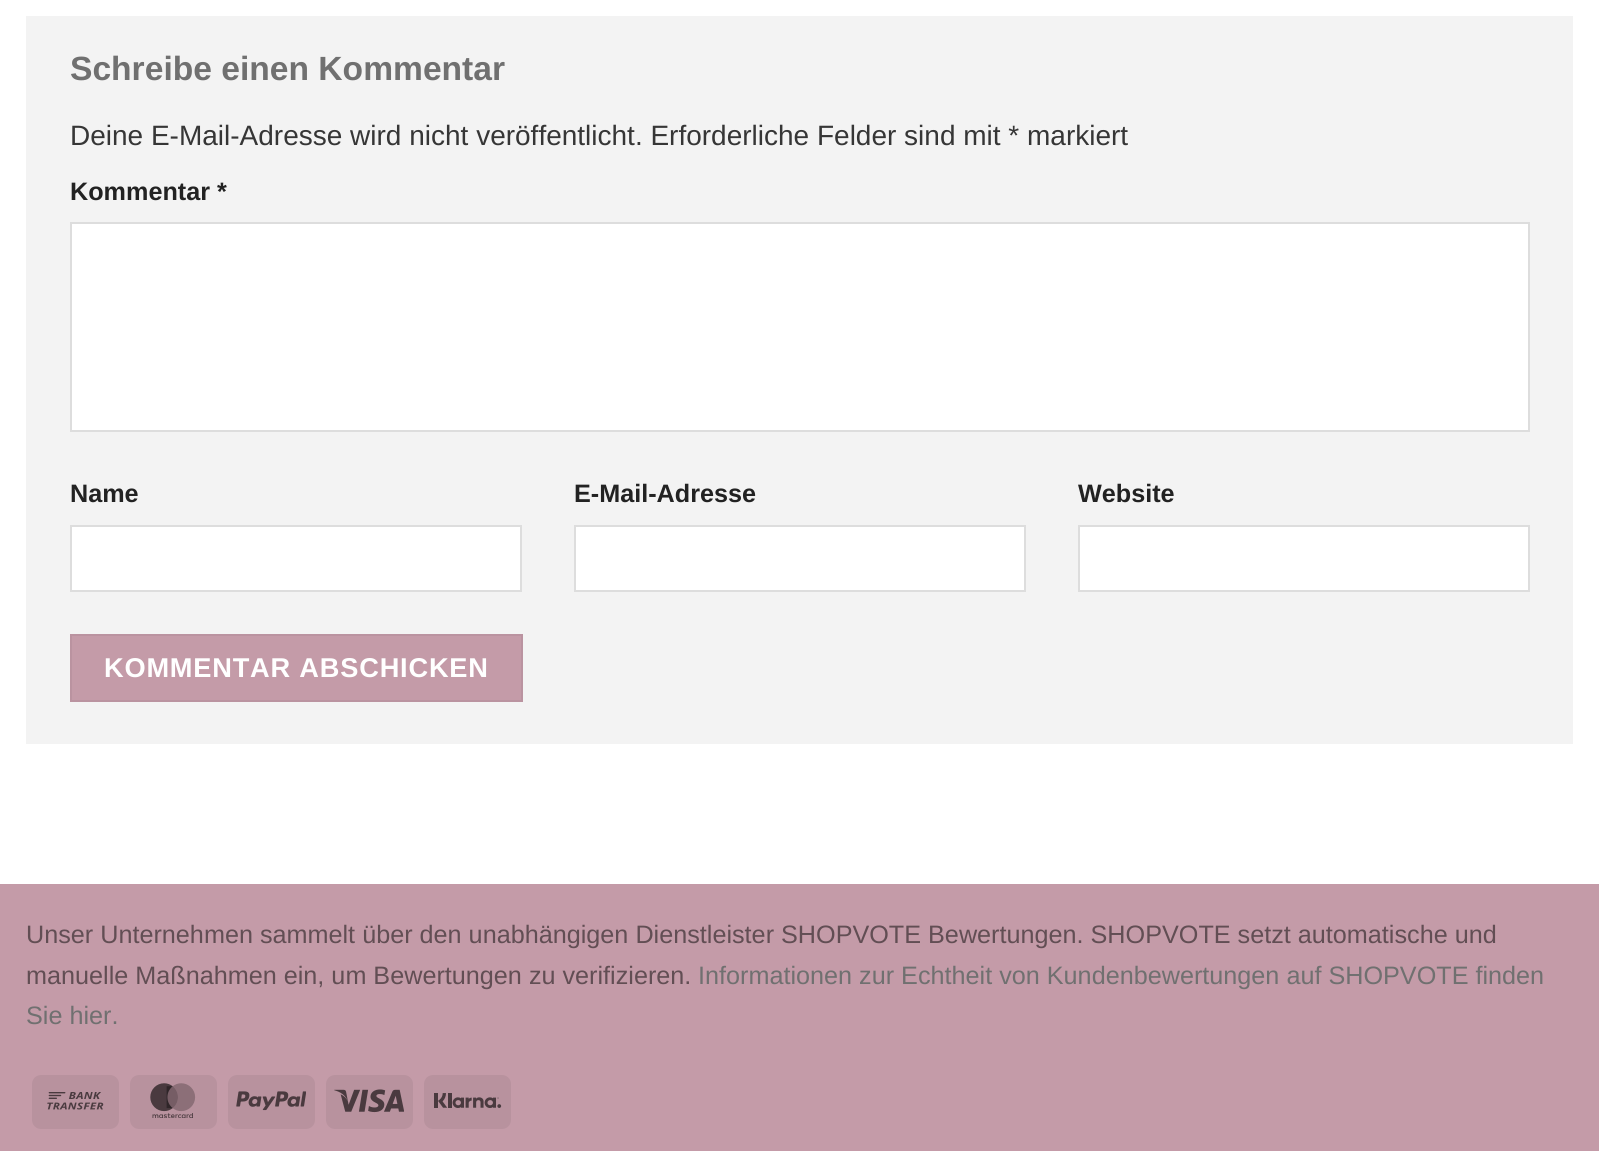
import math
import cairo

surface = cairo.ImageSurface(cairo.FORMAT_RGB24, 1599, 1151)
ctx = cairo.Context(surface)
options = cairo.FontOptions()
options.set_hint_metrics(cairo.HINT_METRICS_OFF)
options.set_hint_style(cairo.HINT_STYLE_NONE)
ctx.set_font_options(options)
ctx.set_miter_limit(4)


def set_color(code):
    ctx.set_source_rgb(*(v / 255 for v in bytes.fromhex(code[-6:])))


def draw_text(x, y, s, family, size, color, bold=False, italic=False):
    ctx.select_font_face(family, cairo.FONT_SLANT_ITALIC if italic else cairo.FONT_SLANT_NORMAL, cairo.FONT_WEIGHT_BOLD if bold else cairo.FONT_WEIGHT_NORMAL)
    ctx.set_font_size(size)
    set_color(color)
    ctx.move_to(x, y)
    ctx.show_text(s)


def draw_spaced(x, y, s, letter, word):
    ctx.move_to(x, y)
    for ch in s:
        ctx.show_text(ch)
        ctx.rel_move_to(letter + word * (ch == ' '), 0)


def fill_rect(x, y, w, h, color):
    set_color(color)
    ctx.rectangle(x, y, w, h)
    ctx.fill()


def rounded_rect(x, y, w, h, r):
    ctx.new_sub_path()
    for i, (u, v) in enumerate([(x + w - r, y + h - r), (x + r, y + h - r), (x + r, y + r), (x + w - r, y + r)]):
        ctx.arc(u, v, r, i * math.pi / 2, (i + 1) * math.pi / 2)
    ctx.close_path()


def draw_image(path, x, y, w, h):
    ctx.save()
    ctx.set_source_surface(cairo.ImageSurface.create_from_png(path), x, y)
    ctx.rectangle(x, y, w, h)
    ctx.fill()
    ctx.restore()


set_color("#ffffff")
ctx.paint()
fill_rect(26, 16, 1547, 728, "#f3f3f3")
draw_text(70, 80, "Schreibe einen Kommentar", "Liberation Sans", 33.6, "#707070", bold=True)
draw_text(70, 145, "Deine E-Mail-Adresse wird nicht veröffentlicht. Erforderliche Felder sind mit * markiert", "Liberation Sans", 28, "#363636")
draw_text(70, 200, "Kommentar *", "Liberation Sans", 25.2, "#222222", bold=True)
set_color("#ffffff")
ctx.rectangle(71, 223, 1458, 208)
ctx.fill_preserve()
set_color("#dddddd")
ctx.stroke()
draw_text(70, 502, "Name", "Liberation Sans", 25.2, "#222222", bold=True)
set_color("#ffffff")
ctx.rectangle(71, 526, 450, 65)
ctx.fill_preserve()
set_color("#dddddd")
ctx.stroke()
draw_text(574, 502, "E-Mail-Adresse", "Liberation Sans", 25.2, "#222222", bold=True)
set_color("#ffffff")
ctx.rectangle(575, 526, 450, 65)
ctx.fill_preserve()
set_color("#dddddd")
ctx.stroke()
draw_text(1078, 502, "Website", "Liberation Sans", 25.2, "#222222", bold=True)
set_color("#ffffff")
ctx.rectangle(1079, 526, 450, 65)
ctx.fill_preserve()
set_color("#dddddd")
ctx.stroke()
set_color("#c49ba8")
ctx.rectangle(71, 635, 451, 66)
ctx.fill_preserve()
set_color("#ba93a0")
ctx.stroke()
ctx.set_font_size(27.2)
set_color("#ffffff")
draw_spaced(104, 677, "KOMMENTAR ABSCHICKEN", 0.8, 0)
fill_rect(0, 884, 1599, 267, "#c49ba8")
draw_text(26, 943, "Unser Unternehmen sammelt über den unabhängigen Dienstleister SHOPVOTE Bewertungen. SHOPVOTE setzt automatische und", "Liberation Sans", 25.2, "#624e54")
draw_text(26, 984, "manuelle Maßnahmen ein, um Bewertungen zu verifizieren.", "Liberation Sans", 25.2, "#624e54")
draw_text(698, 984, "Informationen zur Echtheit von Kundenbewertungen auf SHOPVOTE finden", "Liberation Sans", 25.2, "#707070")
draw_text(26, 1024, "Sie hier.", "Liberation Sans", 25.2, "#707070")
set_color("#b8929e")
rounded_rect(32, 1075, 87, 54, 9)
ctx.fill()
draw_image("assets/img1.png", 47, 1092, 57, 18)
rounded_rect(130, 1075, 87, 54, 9)
ctx.fill()
draw_image("assets/img2.png", 150, 1083, 46, 35)
rounded_rect(228, 1075, 87, 54, 9)
ctx.fill()
draw_image("assets/img3.png", 236, 1091, 70, 20)
rounded_rect(326, 1075, 87, 54, 9)
ctx.fill()
draw_image("assets/img4.png", 334, 1089, 70, 24)
rounded_rect(424, 1075, 87, 54, 9)
ctx.fill()
draw_image("assets/img5.png", 434, 1093, 68, 15)
surface.write_to_png("output.png")
